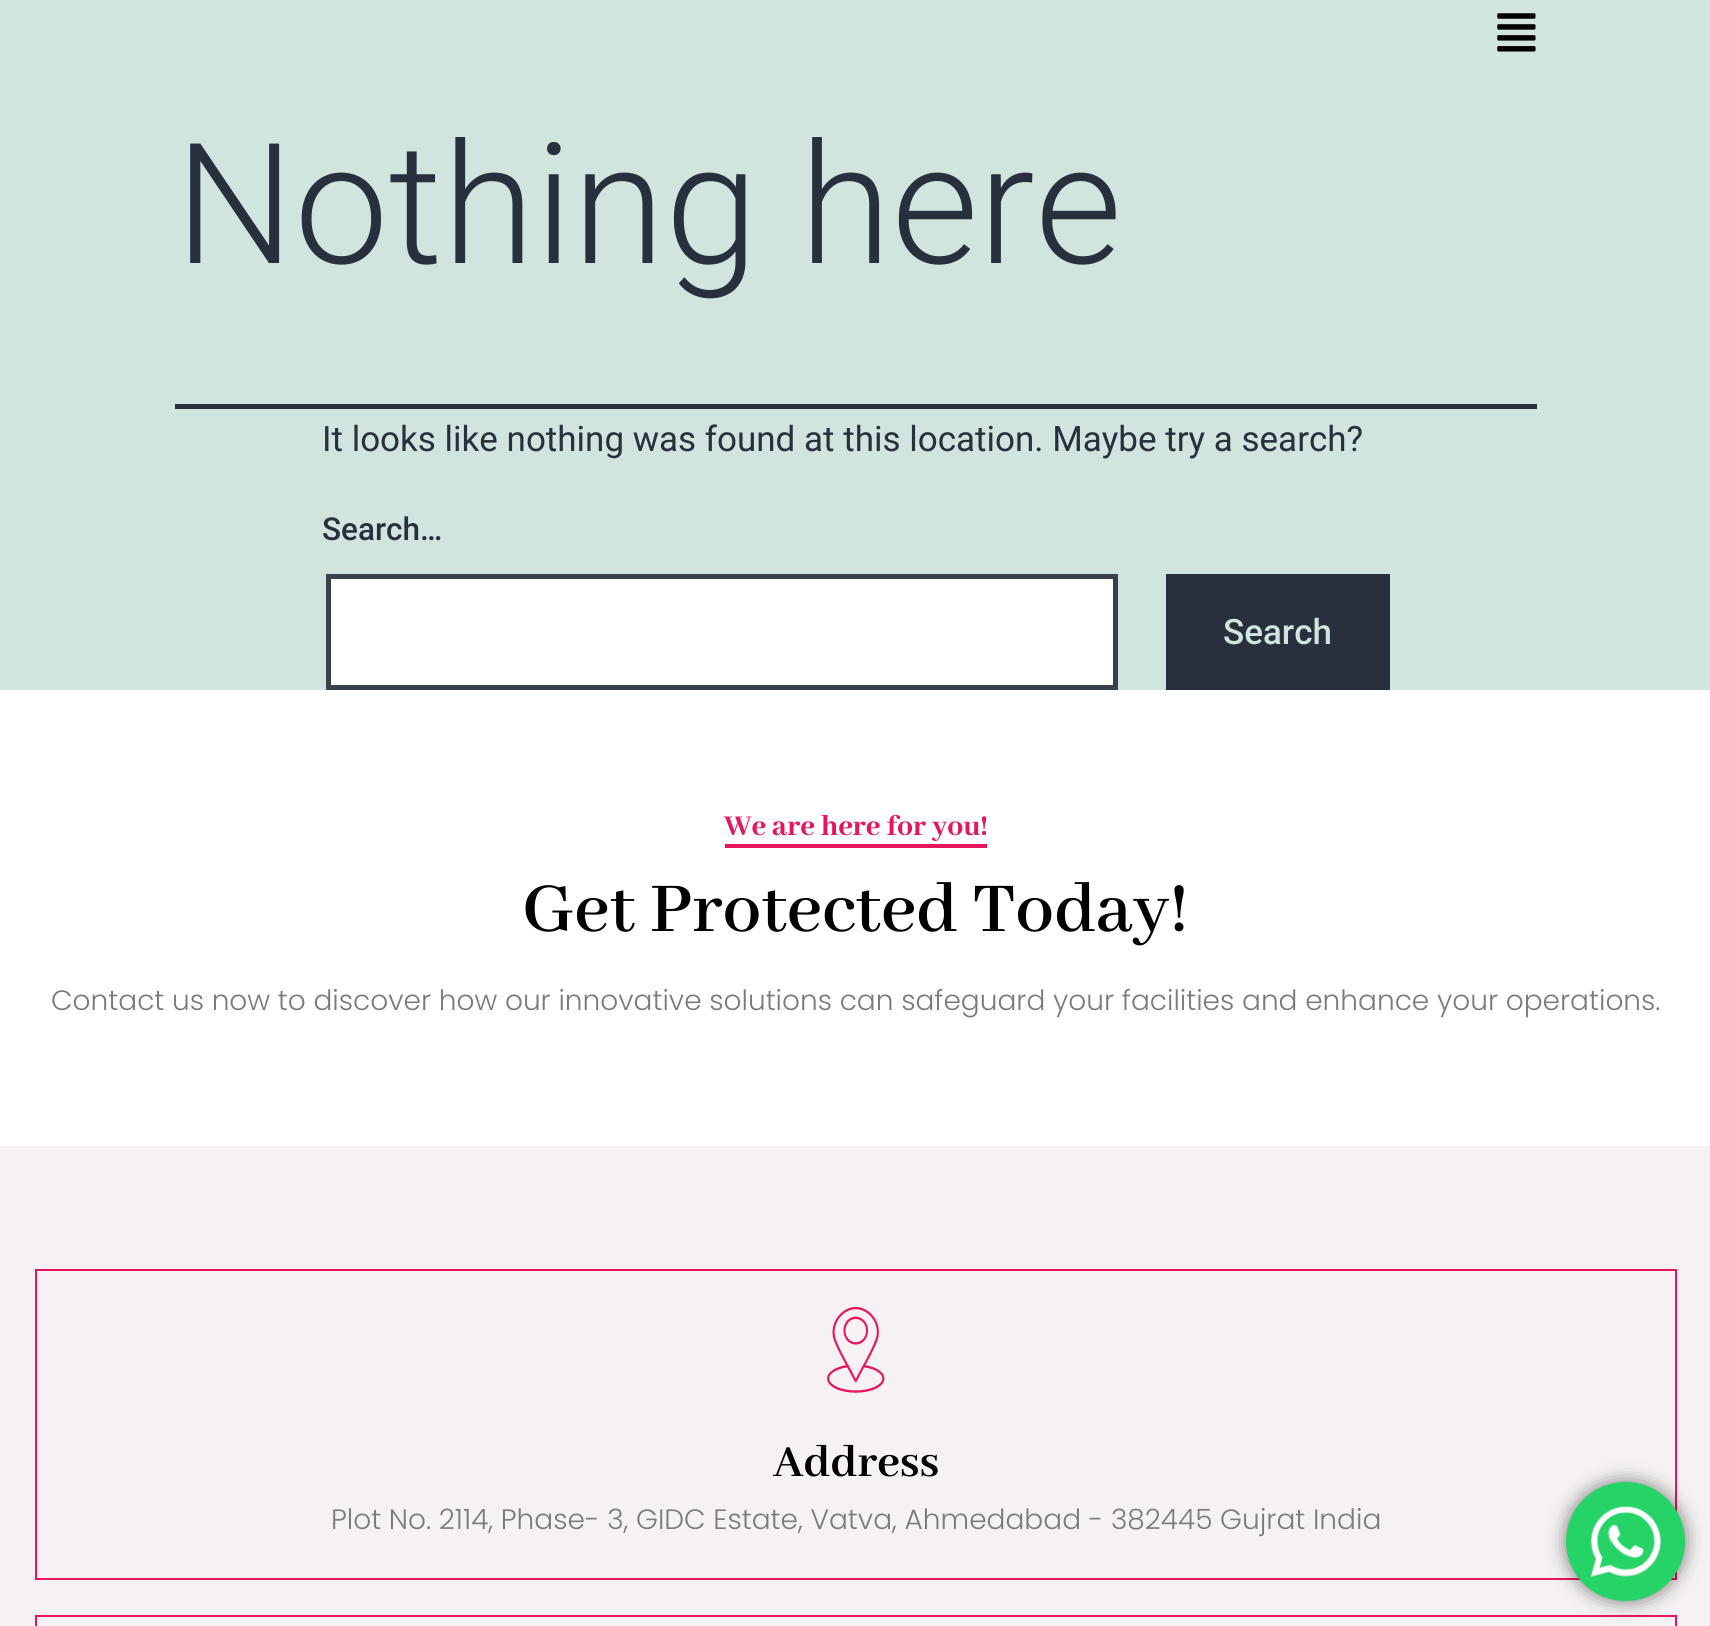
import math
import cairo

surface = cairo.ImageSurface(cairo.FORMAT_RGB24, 1710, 1626)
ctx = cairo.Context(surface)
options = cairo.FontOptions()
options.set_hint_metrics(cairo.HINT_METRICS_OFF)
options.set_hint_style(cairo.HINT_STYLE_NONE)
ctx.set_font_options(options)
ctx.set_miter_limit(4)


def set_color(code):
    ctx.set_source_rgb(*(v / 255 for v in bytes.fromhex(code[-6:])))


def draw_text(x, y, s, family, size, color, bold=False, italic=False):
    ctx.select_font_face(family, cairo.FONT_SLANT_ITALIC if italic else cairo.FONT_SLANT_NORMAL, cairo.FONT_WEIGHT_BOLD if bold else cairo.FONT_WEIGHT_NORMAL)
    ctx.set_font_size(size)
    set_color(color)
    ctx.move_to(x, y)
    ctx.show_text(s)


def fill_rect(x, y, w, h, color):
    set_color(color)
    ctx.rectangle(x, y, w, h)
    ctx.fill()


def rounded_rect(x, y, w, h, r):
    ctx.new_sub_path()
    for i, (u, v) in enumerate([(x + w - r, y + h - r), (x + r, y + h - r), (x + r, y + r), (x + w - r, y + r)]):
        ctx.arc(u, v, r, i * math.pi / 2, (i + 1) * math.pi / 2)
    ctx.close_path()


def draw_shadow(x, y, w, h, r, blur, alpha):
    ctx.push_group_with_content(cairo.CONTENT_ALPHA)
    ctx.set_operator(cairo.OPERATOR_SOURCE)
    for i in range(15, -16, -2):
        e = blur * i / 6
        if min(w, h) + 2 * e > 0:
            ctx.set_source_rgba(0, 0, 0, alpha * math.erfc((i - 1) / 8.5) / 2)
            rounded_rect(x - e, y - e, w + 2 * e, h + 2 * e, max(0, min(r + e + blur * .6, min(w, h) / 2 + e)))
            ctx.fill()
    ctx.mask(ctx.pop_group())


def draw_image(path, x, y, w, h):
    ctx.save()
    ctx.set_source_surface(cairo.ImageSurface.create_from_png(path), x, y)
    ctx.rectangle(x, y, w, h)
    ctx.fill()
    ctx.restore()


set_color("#d1e4dd")
ctx.paint()
draw_image("assets/img1.png", 1497, 13, 39, 39)
fill_rect(175, 404, 1362, 5, "#28303d")
draw_text(175, 263, "Nothing here", "Roboto Light", 168, "#28303d")
draw_text(322, 451, "It looks like nothing was found at this location. Maybe try a search?", "Roboto", 35, "#28303d")
draw_text(322, 540, "Search…", "Roboto Medium", 31.5, "#28303d")
set_color("#ffffff")
ctx.rectangle(328.5, 576.5, 787, 111)
ctx.fill_preserve()
set_color("#39414d")
ctx.set_line_width(5)
ctx.stroke()
fill_rect(1166, 574, 224, 116, "#28303d")
draw_text(1223, 644, "Search", "Roboto Medium", 35, "#d1e4dd")
fill_rect(0, 690, 1710, 456, "#ffffff")
fill_rect(725, 844, 262, 4, "#e7155e")
draw_text(724, 835, "We are here for you!", "Abhaya Libre ExtraBold ExtraBold", 31.5, "#e7155e")
draw_text(522, 931, "Get Protected Today!", "Abhaya Libre SemiBold SemiBold", 77, "#000000")
draw_text(51, 1010, "Contact us now to discover how our innovative solutions can safeguard your facilities and enhance your operations.", "Poppins Light", 28, "#7a7a7a")
fill_rect(0, 1146, 1710, 480, "#f6f2f4")
ctx.rectangle(36, 1270, 1640, 309)
set_color("#e7155e")
ctx.set_line_width(2)
ctx.stroke()
draw_image("assets/img2.png", 827, 1306, 58, 87)
draw_text(773, 1476, "Address", "Abhaya Libre", 49, "#000000", bold=True)
draw_text(331, 1529, "Plot No. 2114, Phase- 3, GIDC Estate, Vatva, Ahmedabad - 382445 Gujrat India", "Poppins Light", 28, "#7a7a7a")
ctx.rectangle(36, 1616, 1640, 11)
set_color("#e7155e")
ctx.stroke()
set_color("#000000")
draw_shadow(1566, 1482, 119, 119, 59.5, 9.5, 0.5)
set_color("#25d366")
ctx.arc(1625.5, 1541.5, 59.5, 0, 2 * math.pi)
ctx.fill()
draw_image("assets/img3.png", 1590, 1506, 71, 71)
surface.write_to_png("output.png")
